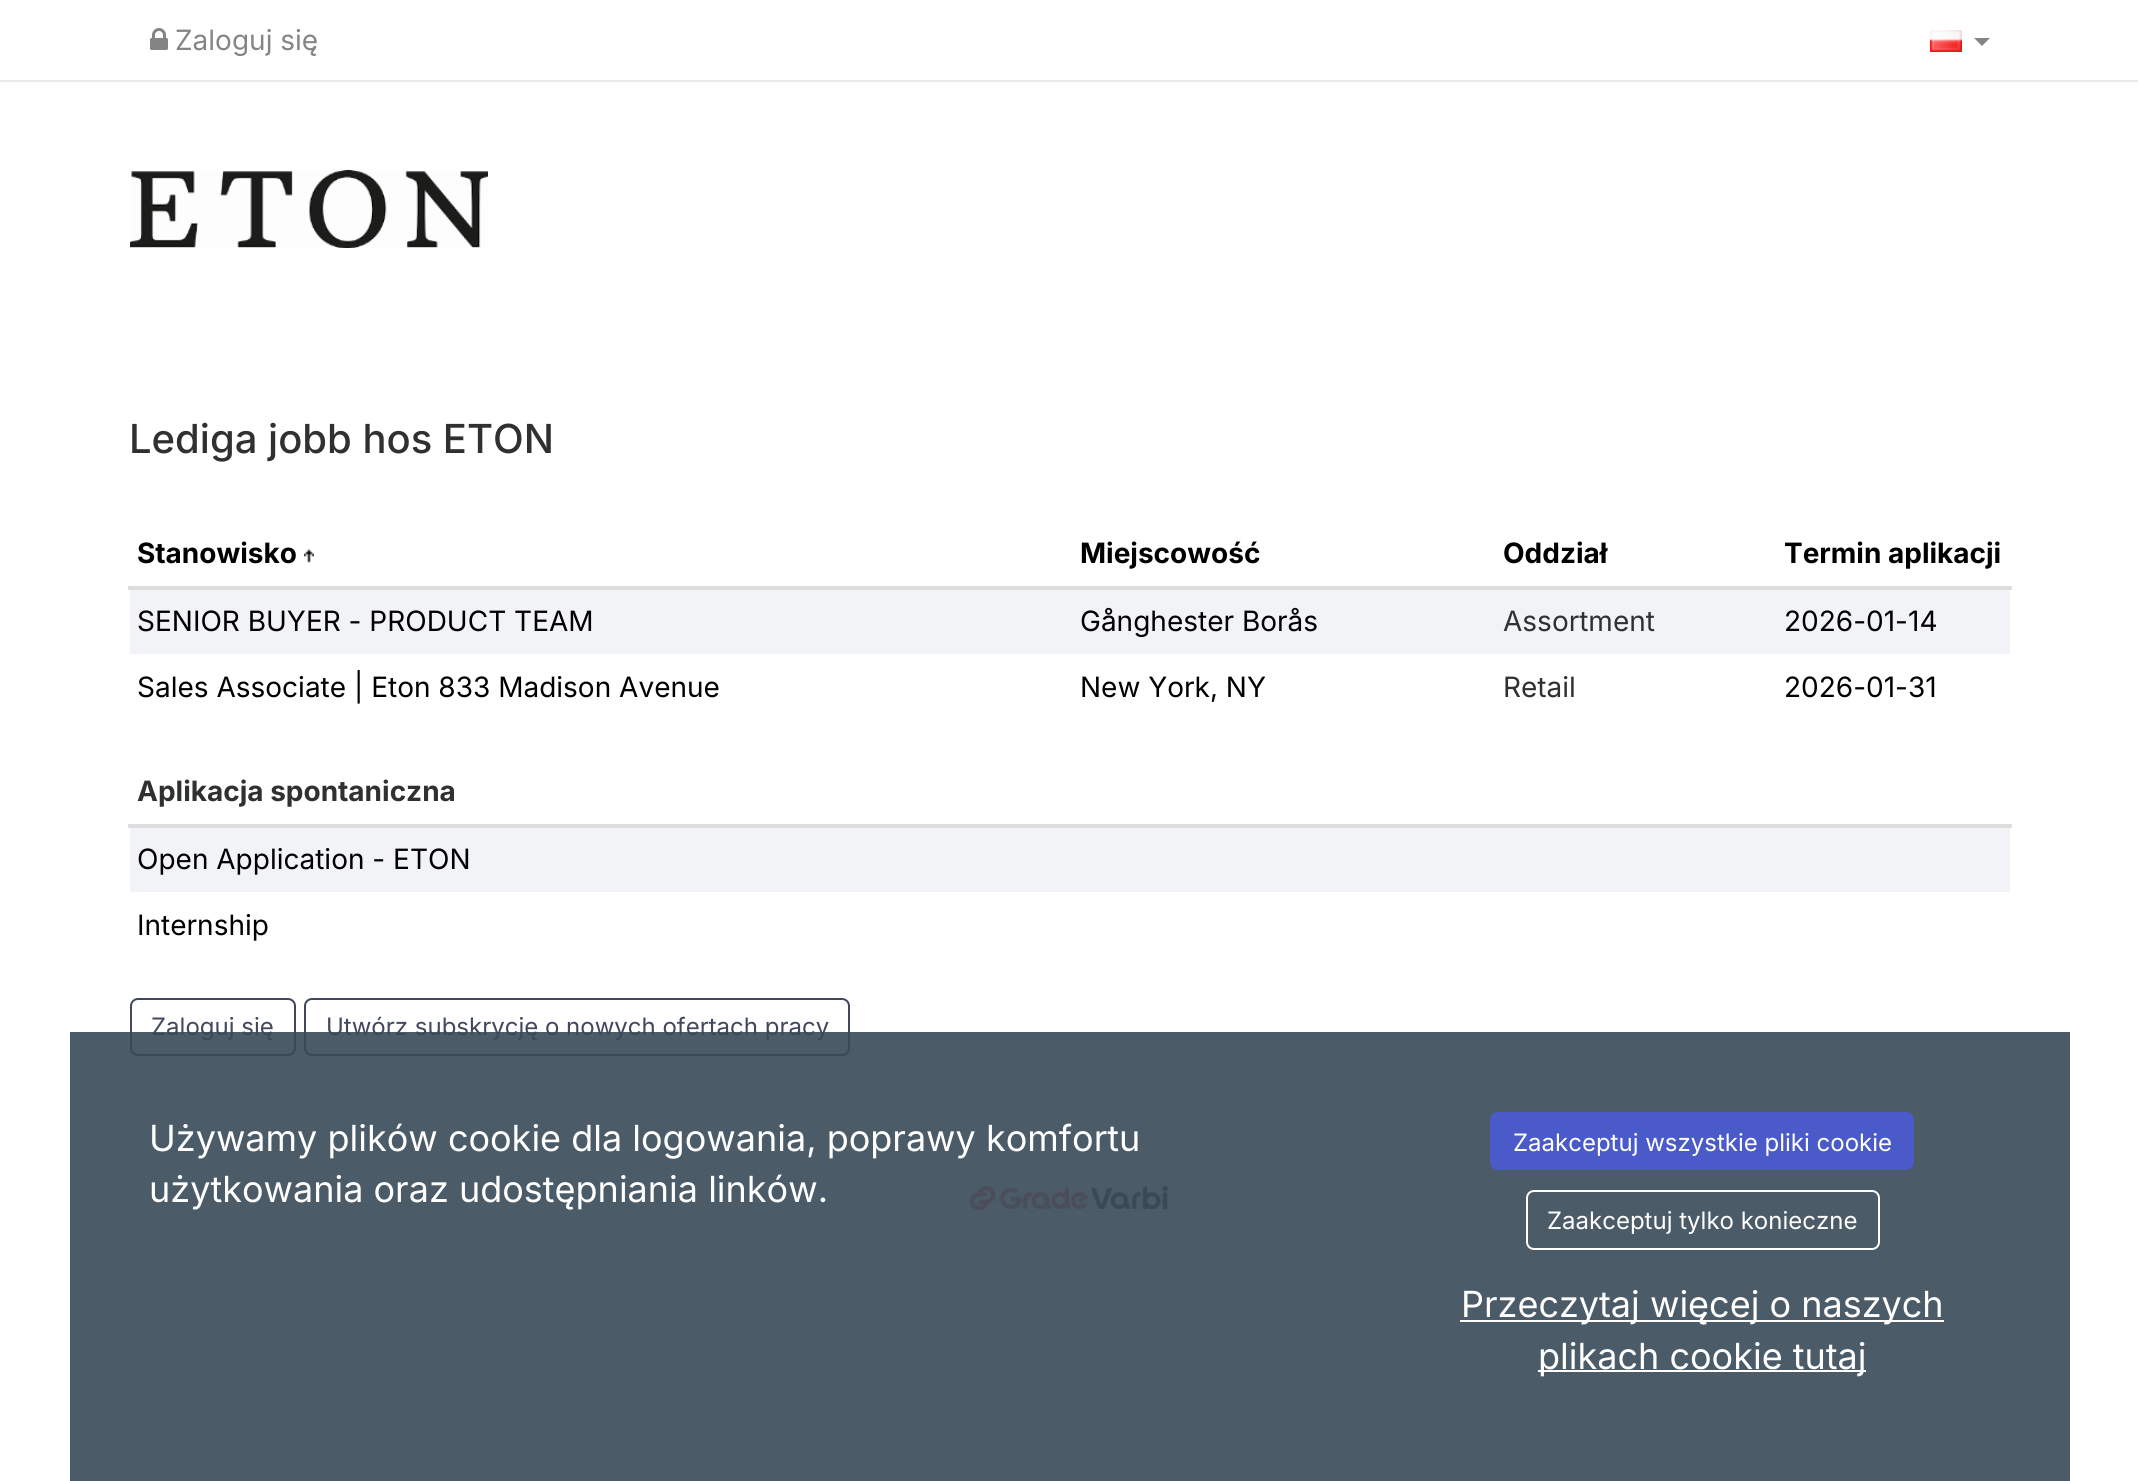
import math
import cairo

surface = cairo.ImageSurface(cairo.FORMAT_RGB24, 2138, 1481)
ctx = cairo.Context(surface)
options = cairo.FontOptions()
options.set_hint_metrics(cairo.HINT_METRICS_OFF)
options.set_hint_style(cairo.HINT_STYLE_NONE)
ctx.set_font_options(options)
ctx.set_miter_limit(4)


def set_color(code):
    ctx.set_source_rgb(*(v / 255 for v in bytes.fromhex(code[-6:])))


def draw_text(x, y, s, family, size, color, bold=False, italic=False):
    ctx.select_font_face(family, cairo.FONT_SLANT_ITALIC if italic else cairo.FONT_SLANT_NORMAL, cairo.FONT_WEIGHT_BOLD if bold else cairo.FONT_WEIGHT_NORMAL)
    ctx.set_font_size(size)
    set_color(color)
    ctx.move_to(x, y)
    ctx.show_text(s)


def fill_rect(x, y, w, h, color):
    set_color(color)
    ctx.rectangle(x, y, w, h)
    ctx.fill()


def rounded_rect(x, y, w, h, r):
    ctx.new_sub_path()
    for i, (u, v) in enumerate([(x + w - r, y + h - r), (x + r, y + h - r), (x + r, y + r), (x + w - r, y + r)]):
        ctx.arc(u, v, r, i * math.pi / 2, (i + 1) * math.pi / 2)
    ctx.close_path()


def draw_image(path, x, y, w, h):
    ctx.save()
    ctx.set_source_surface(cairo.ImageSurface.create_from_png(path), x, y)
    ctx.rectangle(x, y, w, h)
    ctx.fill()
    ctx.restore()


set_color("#ffffff")
ctx.paint()
fill_rect(0, 80, 2138, 2, "#e9e9e9")
draw_image("assets/img1.png", 150, 28, 18, 22)
draw_text(175, 50, "Zaloguj się", "Inter", 28, "#858585")
draw_image("assets/img2.png", 1930, 30, 32, 22)
ctx.new_path()
ctx.move_to(1974, 38)
ctx.line_to(1990, 38)
ctx.line_to(1982, 46)
ctx.close_path()
ctx.fill()
draw_image("assets/img3.png", 130, 170, 358, 78)
draw_text(129, 453, "Lediga jobb hos ETON", "Inter Medium", 40, "#2f3030")
draw_text(137, 563, "Stanowisko", "Inter", 28, "#000000", bold=True)
draw_image("assets/img4.png", 304, 549, 10, 14)
draw_text(1080, 563, "Miejscowość", "Inter", 28, "#000000", bold=True)
draw_text(1503, 563, "Oddział", "Inter", 28, "#000000", bold=True)
fill_rect(128, 586, 1884, 4, "#dddddd")
draw_text(1784, 563, "Termin aplikacji", "Inter", 28, "#000000", bold=True)
fill_rect(130, 590, 1880, 64, "#f2f3f6")
draw_text(137, 631, "SENIOR BUYER - PRODUCT TEAM", "Inter", 28, "#000000")
draw_text(1080, 631, "Gånghester Borås", "Inter", 28, "#000000")
draw_text(1503, 631, "Assortment", "Inter", 28, "#2f3030")
draw_text(1784, 631, "2026-01-14", "Inter", 28, "#000000")
draw_text(137, 697, "Sales Associate | Eton 833 Madison Avenue", "Inter", 28, "#000000")
draw_text(1080, 697, "New York, NY", "Inter", 28, "#000000")
draw_text(1503, 697, "Retail", "Inter", 28, "#2f3030")
draw_text(1784, 697, "2026-01-31", "Inter", 28, "#000000")
fill_rect(128, 824, 1884, 4, "#dddddd")
draw_text(137, 801, "Aplikacja spontaniczna", "Inter", 28, "#2f3030", bold=True)
fill_rect(130, 828, 1880, 64, "#f2f3f6")
draw_text(137, 869, "Open Application - ETON", "Inter", 28, "#000000")
draw_text(137, 935, "Internship", "Inter", 28, "#000000")
rounded_rect(131, 999, 164, 56, 7)
set_color("#41475e")
ctx.stroke()
draw_text(151, 1035, "Zaloguj się", "Inter", 24, "#41475e")
rounded_rect(305, 999, 544, 56, 7)
ctx.stroke()
draw_text(326, 1035, "Utwórz subskrycję o nowych ofertach pracy", "Inter", 24, "#41475e")
draw_image("assets/img5.png", 970, 1186, 198, 24)
ctx.set_source_rgba(0.22, 0.29, 0.341, 0.9)
ctx.rectangle(70, 1032, 2000, 449)
ctx.fill()
draw_text(149, 1151, "Używamy plików cookie dla logowania, poprawy komfortu", "Inter", 36, "#ffffff")
draw_text(149, 1202, "użytkowania oraz udostępniania linków.", "Inter", 36, "#ffffff")
set_color("#4a5bc9")
rounded_rect(1491, 1113, 422, 56, 7)
ctx.fill_preserve()
ctx.stroke()
draw_text(1513, 1151, "Zaakceptuj wszystkie pliki cookie", "Inter", 24, "#ffffff")
rounded_rect(1527, 1191, 352, 58, 7)
ctx.stroke()
draw_text(1547, 1229, "Zaakceptuj tylko konieczne", "Inter", 24, "#ffffff")
fill_rect(1460, 1320, 484, 2, "#ffffff")
draw_text(1461, 1317, "Przeczytaj więcej o naszych", "Inter", 36, "#ffffff")
fill_rect(1538, 1370, 328, 2, "#ffffff")
draw_text(1538, 1369, "plikach cookie tutaj", "Inter", 36, "#ffffff")
surface.write_to_png("output.png")
